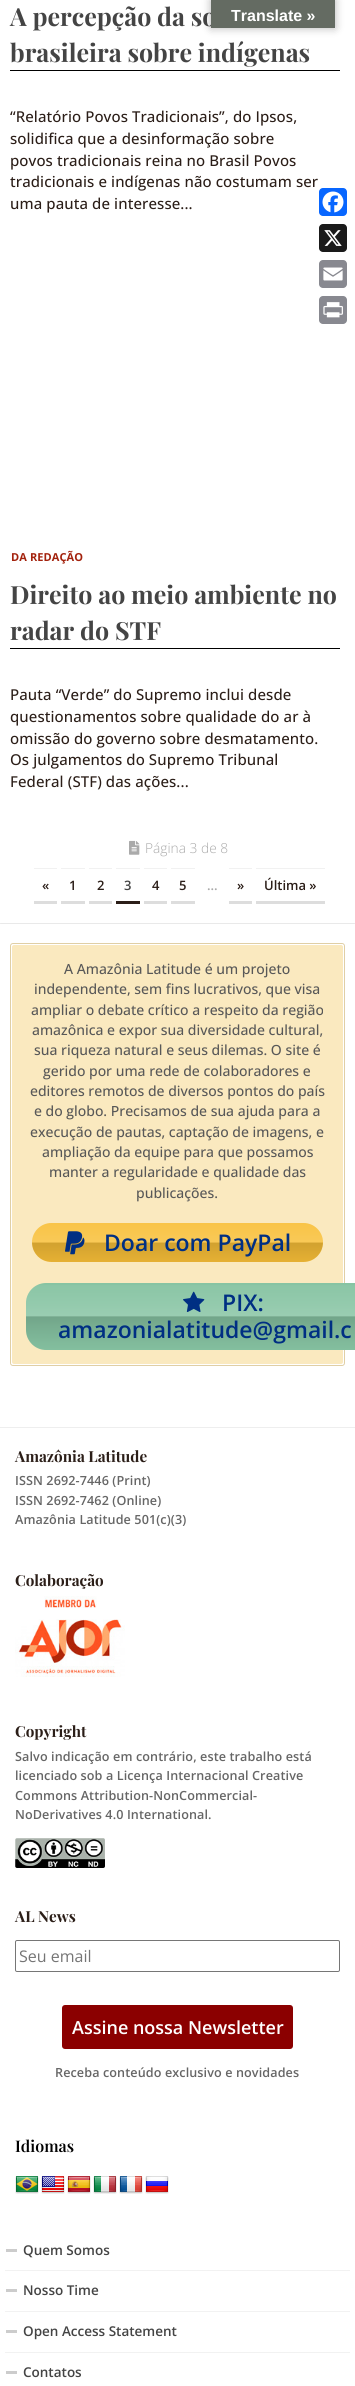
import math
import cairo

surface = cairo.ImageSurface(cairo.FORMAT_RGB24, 355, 2386)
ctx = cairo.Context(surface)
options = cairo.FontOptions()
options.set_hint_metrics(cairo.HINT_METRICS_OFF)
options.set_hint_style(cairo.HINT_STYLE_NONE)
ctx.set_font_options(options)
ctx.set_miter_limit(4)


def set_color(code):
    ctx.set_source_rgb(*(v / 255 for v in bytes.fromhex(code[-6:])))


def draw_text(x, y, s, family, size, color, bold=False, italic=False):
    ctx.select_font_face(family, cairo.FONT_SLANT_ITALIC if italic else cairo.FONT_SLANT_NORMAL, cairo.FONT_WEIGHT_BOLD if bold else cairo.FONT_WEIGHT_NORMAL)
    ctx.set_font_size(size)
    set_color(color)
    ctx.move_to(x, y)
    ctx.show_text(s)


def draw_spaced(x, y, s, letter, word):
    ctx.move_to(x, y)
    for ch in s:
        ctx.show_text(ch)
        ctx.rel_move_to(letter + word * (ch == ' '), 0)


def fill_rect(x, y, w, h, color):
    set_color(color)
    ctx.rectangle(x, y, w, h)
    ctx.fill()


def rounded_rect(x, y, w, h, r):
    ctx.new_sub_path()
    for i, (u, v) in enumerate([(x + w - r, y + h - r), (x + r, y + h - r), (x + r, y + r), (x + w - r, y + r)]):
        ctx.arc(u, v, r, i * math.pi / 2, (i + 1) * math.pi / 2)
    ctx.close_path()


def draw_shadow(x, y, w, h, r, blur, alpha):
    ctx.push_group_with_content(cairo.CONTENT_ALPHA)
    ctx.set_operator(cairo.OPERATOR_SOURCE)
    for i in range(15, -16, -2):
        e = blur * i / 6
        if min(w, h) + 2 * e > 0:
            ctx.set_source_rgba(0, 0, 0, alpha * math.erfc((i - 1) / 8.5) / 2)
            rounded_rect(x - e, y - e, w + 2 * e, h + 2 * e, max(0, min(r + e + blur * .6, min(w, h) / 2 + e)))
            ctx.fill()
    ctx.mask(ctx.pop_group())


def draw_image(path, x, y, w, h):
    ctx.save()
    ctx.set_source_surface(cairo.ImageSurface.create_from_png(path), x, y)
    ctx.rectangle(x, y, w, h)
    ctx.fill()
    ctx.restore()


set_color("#ffffff")
ctx.paint()
ctx.save()
ctx.rectangle(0, 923, 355, 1)
ctx.clip()
set_color("#000000")
draw_shadow(0, -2, 355, 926, 0, 0.5, 0.1)
ctx.restore()
fill_rect(10, 70, 330, 1, "#000000")
draw_text(10, 26, "A percepção da so", "Playfair Display", 25, "#444444", bold=True)
draw_text(10, 62, "brasileira sobre indígenas", "Playfair Display", 25, "#444444", bold=True)
ctx.select_font_face("Open Sans Medium")
ctx.set_font_size(15)
set_color("#2b1e18")
draw_spaced(10, 122, "“Relatório Povos Tradicionais”, do Ipsos,", 0.1, 0)
draw_spaced(10, 144, "solidifica que a desinformação sobre", 0.1, 0)
draw_spaced(10, 166, "povos tradicionais reina no Brasil Povos", 0.1, 0)
draw_spaced(10, 187, "tradicionais e indígenas não costumam ser", 0.1, 0)
draw_spaced(10, 209, "uma pauta de interesse...", 0.1, 0)
ctx.select_font_face("Open Sans", cairo.FONT_SLANT_NORMAL, cairo.FONT_WEIGHT_BOLD)
ctx.set_font_size(11)
set_color("#a3220d")
draw_spaced(11, 561, "DA REDAÇÃO", 0.1, 0)
fill_rect(10, 648, 330, 1, "#000000")
draw_text(10, 604, "Direito ao meio ambiente no", "Playfair Display", 25, "#444444", bold=True)
draw_text(10, 640, "radar do STF", "Playfair Display", 25, "#444444", bold=True)
ctx.select_font_face("Open Sans Medium")
ctx.set_font_size(15)
set_color("#2b1e18")
draw_spaced(10, 700, "Pauta “Verde” do Supremo inclui desde", 0.1, 0)
draw_spaced(10, 722, "questionamentos sobre qualidade do ar à", 0.1, 0)
draw_spaced(10, 744, "omissão do governo sobre desmatamento.", 0.1, 0)
draw_spaced(10, 765, "Os julgamentos do Supremo Tribunal", 0.1, 0)
draw_spaced(10, 787, "Federal (STF) das ações...", 0.1, 0)
draw_image("assets/img1.png", 129, 840, 11, 15)
draw_text(145, 853, "Página 3 de 8", "Open Sans Light", 13.75, "#aaaaaa")
draw_text(42, 890, "«", "Open Sans SemiBold", 13, "#2b1e18")
fill_rect(34, 868, 23, 1, "#f1f1f1")
fill_rect(34, 901, 23, 3, "#dddddd")
draw_text(69, 890, "1", "Open Sans SemiBold", 13, "#2b1e18")
fill_rect(61, 868, 24, 1, "#f1f1f1")
fill_rect(61, 901, 24, 3, "#dddddd")
draw_text(97, 890, "2", "Open Sans SemiBold", 13, "#2b1e18")
fill_rect(89, 868, 23, 1, "#f1f1f1")
fill_rect(89, 901, 23, 3, "#dddddd")
draw_text(124, 890, "3", "Open Sans SemiBold", 13, "#444444")
fill_rect(116, 868, 24, 1, "#f1f1f1")
fill_rect(116, 901, 24, 3, "#2b1e18")
draw_text(152, 890, "4", "Open Sans SemiBold", 13, "#2b1e18")
fill_rect(144, 868, 23, 1, "#f1f1f1")
fill_rect(144, 901, 23, 3, "#dddddd")
draw_text(179, 890, "5", "Open Sans SemiBold", 13, "#2b1e18")
fill_rect(171, 868, 24, 1, "#f1f1f1")
fill_rect(171, 901, 24, 3, "#dddddd")
draw_text(207, 890, "...", "Open Sans SemiBold", 13, "#aaaaaa")
draw_text(237, 890, "»", "Open Sans SemiBold", 13, "#2b1e18")
fill_rect(229, 868, 23, 1, "#f1f1f1")
fill_rect(229, 901, 23, 3, "#dddddd")
draw_text(264, 890, "Última »", "Open Sans SemiBold", 13, "#2b1e18")
fill_rect(256, 868, 69, 1, "#f1f1f1")
fill_rect(256, 901, 69, 3, "#dddddd")
fill_rect(0, 1427, 355, 1, "#eeeeee")
rounded_rect(10.5, 943.5, 334, 422, 2.5)
set_color("#e0cfa5")
ctx.set_line_width(1)
ctx.stroke()
set_color("#fae9bf")
rounded_rect(11.5, 944.5, 332, 420, 2.5)
ctx.fill_preserve()
set_color("#ffffff")
ctx.stroke()
draw_text(64, 974, "A Amazônia Latitude é um projeto", "Open Sans Medium", 14, "#585858")
draw_text(34, 994, "independente, sem fins lucrativos, que visa", "Open Sans Medium", 14, "#585858")
draw_text(31, 1015, "ampliar o debate crítico a respeito da região", "Open Sans Medium", 14, "#585858")
draw_text(32, 1035, "amazônica e expor sua diversidade cultural,", "Open Sans Medium", 14, "#585858")
draw_text(34, 1055, "sua riqueza natural e seus dilemas. O site é", "Open Sans Medium", 14, "#585858")
draw_text(43, 1076, "gerido por uma rede de colaboradores e", "Open Sans Medium", 14, "#585858")
draw_text(30, 1096, "editores remotos de diversos pontos do país", "Open Sans Medium", 14, "#585858")
draw_text(34, 1116, "e do globo. Precisamos de sua ajuda para a", "Open Sans Medium", 14, "#585858")
draw_text(30, 1137, "execução de pautas, captação de imagens, e", "Open Sans Medium", 14, "#585858")
draw_text(42, 1157, "ampliação da equipe para que possamos", "Open Sans Medium", 14, "#585858")
draw_text(49, 1177, "manter a regularidade e qualidade das", "Open Sans Medium", 14, "#585858")
draw_text(136, 1198, "publicações.", "Open Sans Medium", 14, "#585858")
set_color("#f8bf38")
rounded_rect(32, 1223, 291, 39, 19.5)
ctx.fill()
draw_image("assets/img2.png", 32, 1223, 291, 39)
draw_image("assets/img3.png", 65, 1231, 20, 24)
draw_text(104, 1251, "Doar com PayPal", "Open Sans SemiBold", 23, "#002f83")
set_color("#87c4a3")
ctx.new_path()
ctx.move_to(46, 1283)
ctx.line_to(355, 1283)
ctx.line_to(355, 1350)
ctx.line_to(46, 1350)
ctx.curve_to(35, 1350, 26, 1341, 26, 1330)
ctx.line_to(26, 1303)
ctx.curve_to(26, 1292, 35, 1283, 46, 1283)
ctx.close_path()
ctx.fill()
draw_image("assets/img4.png", 26, 1285, 329, 65)
draw_image("assets/img5.png", 183, 1291, 22, 21)
draw_text(222, 1311, "PIX:", "Open Sans SemiBold", 23, "#002f83")
draw_text(58, 1338, "amazonialatitude@gmail.c", "Open Sans SemiBold", 23, "#002f83")
draw_text(15, 1462, "Amazônia Latitude", "Playfair Display", 15.25, "#2b1e18", bold=True)
ctx.select_font_face("Open Sans SemiBold")
ctx.set_font_size(12.6)
set_color("#666666")
draw_spaced(15, 1485, "ISSN 2692-7446 (Print)", 0.1, 0)
draw_spaced(15, 1505, "ISSN 2692-7462 (Online)", 0.1, 0)
draw_spaced(15, 1524, "Amazônia Latitude 501(c)(3)", 0.1, 0)
draw_text(15, 1586, "Colaboração", "Playfair Display", 15.25, "#2b1e18", bold=True)
draw_image("assets/img6.png", 15, 1596, 110, 81)
draw_text(15, 1737, "Copyright", "Playfair Display", 15.25, "#2b1e18", bold=True)
ctx.select_font_face("Open Sans SemiBold")
ctx.set_font_size(12.6)
set_color("#666666")
draw_spaced(15, 1761, "Salvo indicação em contrário, este trabalho está", 0.1, 0)
draw_spaced(15, 1780, "licenciado sob a Licença Internacional Creative", 0.1, 0)
draw_spaced(15, 1800, "Commons Attribution-NonCommercial-", 0.1, 0)
draw_spaced(15, 1819, "NoDerivatives 4.0 International.", 0.1, 0)
draw_image("assets/img7.png", 15, 1838, 90, 30)
draw_text(15, 1922, "AL News", "Playfair Display", 15.25, "#2b1e18", bold=True)
rounded_rect(15.5, 1940.5, 324, 31, 1.5)
set_color("#767676")
ctx.stroke()
draw_text(19, 1962, "Seu email", "Open Sans", 16, "#757575")
set_color("#8b0000")
rounded_rect(62, 2005, 231, 44, 3)
ctx.fill()
draw_text(72, 2034, "Assine nossa Newsletter", "Open Sans SemiBold", 18, "#ffffff")
ctx.set_font_size(12.6)
set_color("#666666")
draw_spaced(55, 2077, "Receba conteúdo exclusivo e novidades", 0.1, 0)
draw_text(15, 2152, "Idiomas", "Playfair Display SemiBold", 16, "#000000")
draw_image("assets/img8.png", 15, 2176, 24, 18)
draw_image("assets/img9.png", 41, 2176, 24, 18)
draw_image("assets/img10.png", 67, 2176, 24, 18)
draw_image("assets/img11.png", 93, 2176, 24, 18)
draw_image("assets/img12.png", 119, 2176, 24, 18)
draw_image("assets/img13.png", 145, 2176, 24, 18)
fill_rect(5, 2270, 345, 1, "#f2f2f2")
fill_rect(6, 2249, 11, 3, "#cccccc")
draw_text(23, 2255, "Quem Somos", "Open Sans SemiBold", 13.5, "#444444")
fill_rect(5, 2311, 345, 1, "#f2f2f2")
fill_rect(6, 2289, 11, 3, "#cccccc")
draw_text(23, 2295, "Nosso Time", "Open Sans SemiBold", 13.5, "#444444")
fill_rect(5, 2352, 345, 1, "#f2f2f2")
fill_rect(6, 2330, 11, 3, "#cccccc")
draw_text(23, 2336, "Open Access Statement", "Open Sans SemiBold", 13.5, "#444444")
fill_rect(6, 2371, 11, 3, "#cccccc")
draw_text(23, 2377, "Contatos", "Open Sans SemiBold", 13.5, "#444444")
set_color("#000000")
draw_shadow(211, 0, 124, 28, 0, 4.5, 0.3)
fill_rect(211, 0, 124, 28, "#646b62")
draw_text(231, 21, "Translate »", "Liberation Sans", 16, "#ffffff", bold=True)
set_color("#0866ff")
rounded_rect(319, 188, 28, 28, 4)
ctx.fill()
draw_image("assets/img14.png", 322, 191, 22, 22)
set_color("#1a1a1a")
rounded_rect(319, 224, 28, 28, 4)
ctx.fill()
draw_image("assets/img15.png", 324, 230, 18, 16)
set_color("#888990")
rounded_rect(319, 260, 28, 28, 4)
ctx.fill()
draw_image("assets/img16.png", 323, 267, 20, 14)
rounded_rect(319, 296, 28, 28, 4)
ctx.fill()
draw_image("assets/img17.png", 323, 302, 20, 16)
surface.write_to_png("output.png")
